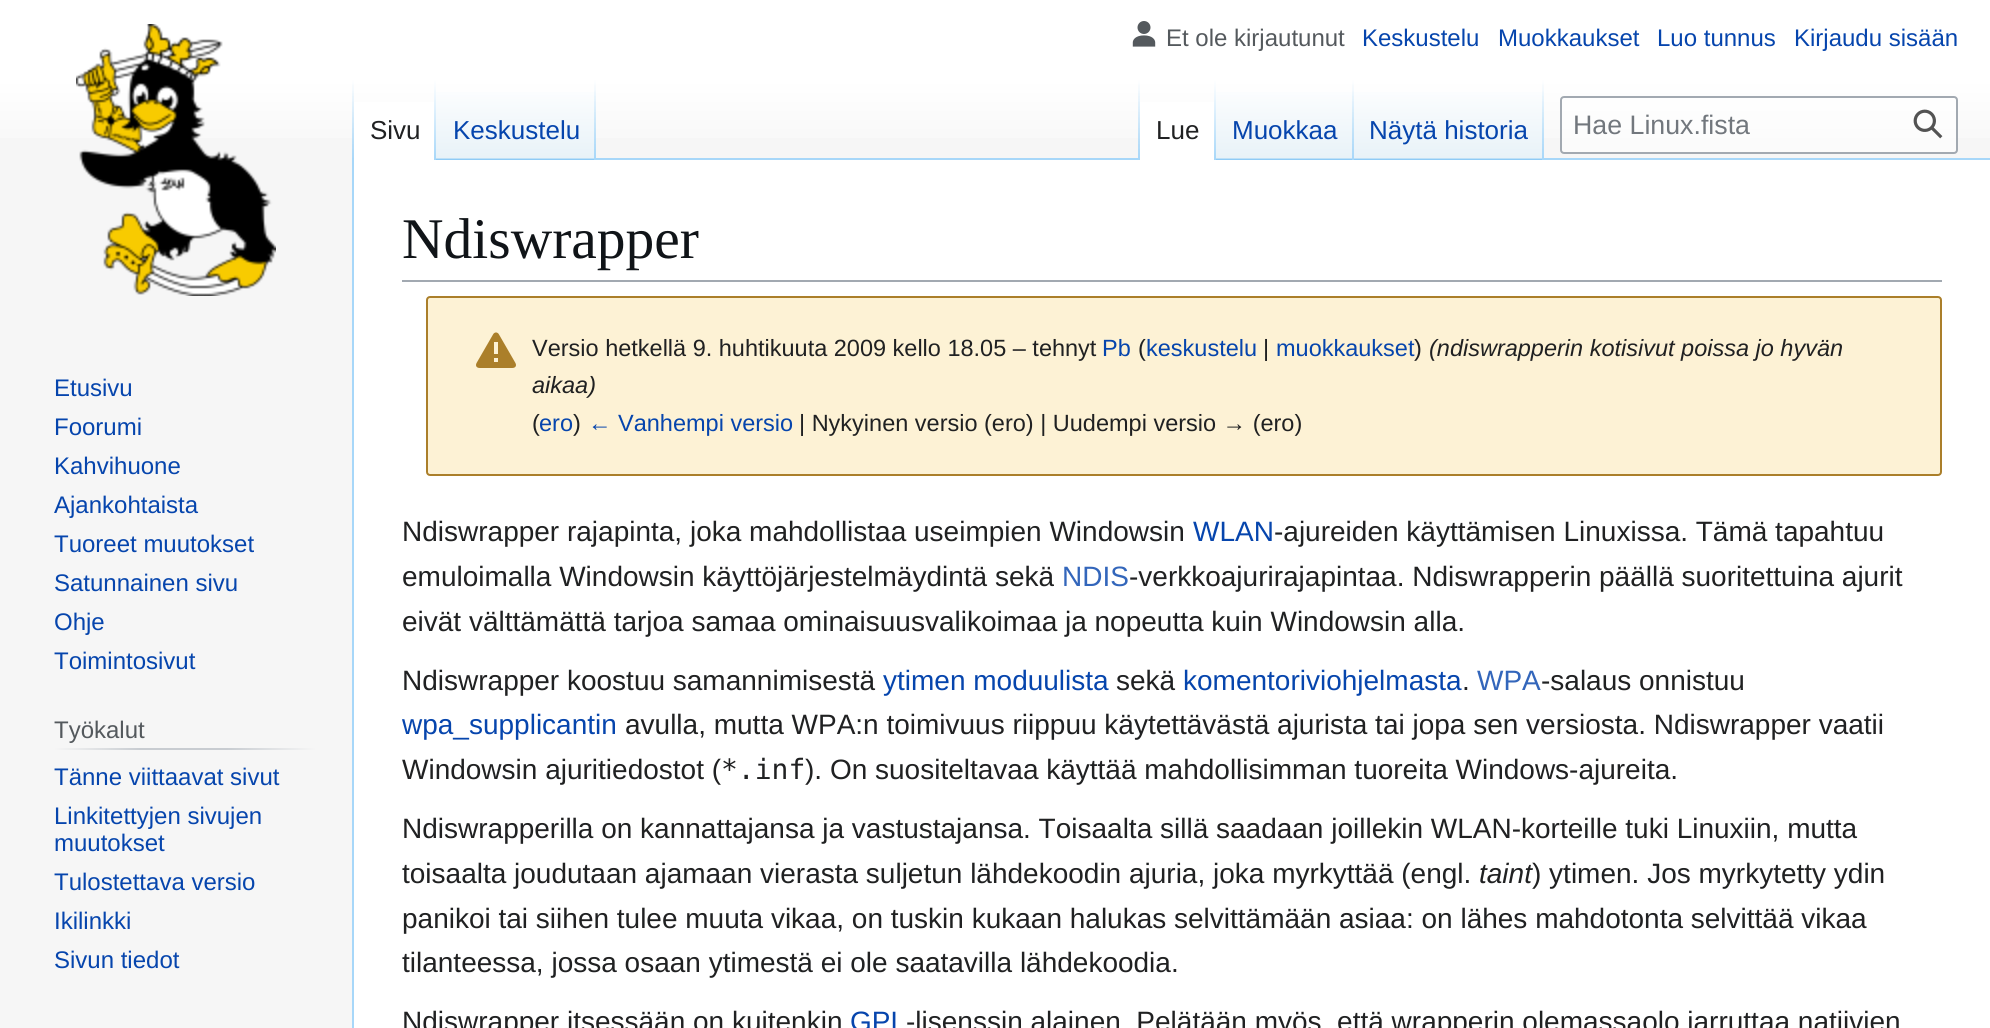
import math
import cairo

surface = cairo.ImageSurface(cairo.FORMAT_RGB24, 1990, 1028)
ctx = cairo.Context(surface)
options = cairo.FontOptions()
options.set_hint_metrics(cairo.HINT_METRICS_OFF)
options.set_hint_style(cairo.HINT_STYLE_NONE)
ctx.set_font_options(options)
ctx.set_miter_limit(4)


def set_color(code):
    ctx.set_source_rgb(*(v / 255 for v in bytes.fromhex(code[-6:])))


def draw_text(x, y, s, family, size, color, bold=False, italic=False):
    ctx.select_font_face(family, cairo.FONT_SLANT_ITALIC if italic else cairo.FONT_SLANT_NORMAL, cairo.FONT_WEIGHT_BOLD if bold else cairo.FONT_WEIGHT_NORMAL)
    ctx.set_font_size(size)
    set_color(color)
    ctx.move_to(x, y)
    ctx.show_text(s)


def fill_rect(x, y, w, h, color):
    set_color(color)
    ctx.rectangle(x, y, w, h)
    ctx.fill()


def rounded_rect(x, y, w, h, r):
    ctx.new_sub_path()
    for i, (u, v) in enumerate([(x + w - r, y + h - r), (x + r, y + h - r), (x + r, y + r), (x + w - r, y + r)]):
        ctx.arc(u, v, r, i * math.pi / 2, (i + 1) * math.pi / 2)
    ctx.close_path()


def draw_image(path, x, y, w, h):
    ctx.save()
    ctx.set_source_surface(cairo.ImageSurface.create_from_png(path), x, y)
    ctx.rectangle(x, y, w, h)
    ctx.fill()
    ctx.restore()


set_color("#f6f6f6")
ctx.paint()
gradient = cairo.LinearGradient(995, 0, 995, 160)
gradient.add_color_stop_rgba(0.5, 1, 1, 1, 1)
gradient.add_color_stop_rgba(1, 0.965, 0.965, 0.965, 1)
ctx.set_source(gradient)
ctx.rectangle(0, 0, 1990, 138)
ctx.fill()
draw_image("assets/img1.png", 1132, 21, 24, 26)
draw_text(1166, 46, "Et ole kirjautunut", "Liberation Sans", 24, "#54595d")
draw_text(1362, 46, "Keskustelu", "Liberation Sans", 24, "#0645ad")
draw_text(1498, 46, "Muokkaukset", "Liberation Sans", 24, "#0645ad")
draw_text(1657, 46, "Luo tunnus", "Liberation Sans", 24, "#0645ad")
draw_text(1794, 46, "Kirjaudu sisään", "Liberation Sans", 24, "#0645ad")
fill_rect(352, 158, 2, 870, "#a7d7f9")
gradient = cairo.LinearGradient(353, 80, 353, 160)
gradient.add_color_stop_rgba(0, 0.655, 0.843, 0.976, 0)
gradient.add_color_stop_rgba(1, 0.655, 0.843, 0.976, 1)
ctx.set_source(gradient)
ctx.rectangle(352, 80, 2, 80)
ctx.fill()
fill_rect(354, 102, 80, 58, "#ffffff")
gradient = cairo.LinearGradient(435, 80, 435, 160)
gradient.add_color_stop_rgba(0, 1, 1, 1, 1)
gradient.add_color_stop_rgba(1, 0.655, 0.843, 0.976, 1)
ctx.set_source(gradient)
ctx.rectangle(434, 80, 2, 80)
ctx.fill()
draw_text(370, 139, "Sivu", "Liberation Sans", 26, "#202122")
gradient = cairo.LinearGradient(516, 160, 516, 80)
gradient.add_color_stop_rgba(0, 0.467, 0.757, 0.965, 1)
gradient.add_color_stop_rgba(0.03, 0.91, 0.949, 0.973, 1)
gradient.add_color_stop_rgba(1, 1, 1, 1, 1)
ctx.set_source(gradient)
ctx.rectangle(436, 92, 160, 68)
ctx.fill()
gradient = cairo.LinearGradient(595, 80, 595, 160)
gradient.add_color_stop_rgba(0, 0.655, 0.843, 0.976, 0)
gradient.add_color_stop_rgba(1, 0.655, 0.843, 0.976, 1)
ctx.set_source(gradient)
ctx.rectangle(594, 80, 2, 80)
ctx.fill()
draw_text(453, 139, "Keskustelu", "Liberation Sans", 26, "#0645ad")
fill_rect(596, 158, 1394, 2, "#a7d7f9")
gradient = cairo.LinearGradient(1139, 80, 1139, 160)
gradient.add_color_stop_rgba(0, 0.655, 0.843, 0.976, 0)
gradient.add_color_stop_rgba(1, 0.655, 0.843, 0.976, 1)
ctx.set_source(gradient)
ctx.rectangle(1138, 80, 2, 80)
ctx.fill()
fill_rect(1140, 102, 74, 58, "#ffffff")
gradient = cairo.LinearGradient(1215, 80, 1215, 160)
gradient.add_color_stop_rgba(0, 1, 1, 1, 1)
gradient.add_color_stop_rgba(1, 0.655, 0.843, 0.976, 1)
ctx.set_source(gradient)
ctx.rectangle(1214, 80, 2, 80)
ctx.fill()
draw_text(1156, 139, "Lue", "Liberation Sans", 26, "#202122")
gradient = cairo.LinearGradient(1285, 160, 1285, 80)
gradient.add_color_stop_rgba(0, 0.467, 0.757, 0.965, 1)
gradient.add_color_stop_rgba(0.03, 0.91, 0.949, 0.973, 1)
gradient.add_color_stop_rgba(1, 1, 1, 1, 1)
ctx.set_source(gradient)
ctx.rectangle(1216, 92, 138, 68)
ctx.fill()
gradient = cairo.LinearGradient(1353, 80, 1353, 160)
gradient.add_color_stop_rgba(0, 0.655, 0.843, 0.976, 0)
gradient.add_color_stop_rgba(1, 0.655, 0.843, 0.976, 1)
ctx.set_source(gradient)
ctx.rectangle(1352, 80, 2, 80)
ctx.fill()
draw_text(1232, 139, "Muokkaa", "Liberation Sans", 26, "#0645ad")
gradient = cairo.LinearGradient(1449, 160, 1449, 80)
gradient.add_color_stop_rgba(0, 0.467, 0.757, 0.965, 1)
gradient.add_color_stop_rgba(0.03, 0.91, 0.949, 0.973, 1)
gradient.add_color_stop_rgba(1, 1, 1, 1, 1)
ctx.set_source(gradient)
ctx.rectangle(1354, 92, 190, 68)
ctx.fill()
gradient = cairo.LinearGradient(1543, 80, 1543, 160)
gradient.add_color_stop_rgba(0, 0.655, 0.843, 0.976, 0)
gradient.add_color_stop_rgba(1, 0.655, 0.843, 0.976, 1)
ctx.set_source(gradient)
ctx.rectangle(1542, 80, 2, 80)
ctx.fill()
draw_text(1369, 139, "Näytä historia", "Liberation Sans", 26, "#0645ad")
ctx.set_source_rgba(1, 1, 1, 0.5)
rounded_rect(1561, 97, 396, 56, 3)
ctx.fill_preserve()
set_color("#a2a9b1")
ctx.stroke()
draw_text(1573, 134, "Hae Linux.fista", "Liberation Sans", 26.75, "#72777d")
draw_image("assets/img2.png", 1913, 109, 30, 30)
draw_image("assets/img3.png", 76, 24, 200, 272)
draw_text(54, 396, "Etusivu", "Liberation Sans", 24, "#0645ad")
draw_text(54, 435, "Foorumi", "Liberation Sans", 24, "#0645ad")
draw_text(54, 474, "Kahvihuone", "Liberation Sans", 24, "#0645ad")
draw_text(54, 513, "Ajankohtaista", "Liberation Sans", 24, "#0645ad")
draw_text(54, 552, "Tuoreet muutokset", "Liberation Sans", 24, "#0645ad")
draw_text(54, 591, "Satunnainen sivu", "Liberation Sans", 24, "#0645ad")
draw_text(54, 630, "Ohje", "Liberation Sans", 24, "#0645ad")
draw_text(54, 669, "Toimintosivut", "Liberation Sans", 24, "#0645ad")
gradient = cairo.LinearGradient(54, 749, 316, 749)
gradient.add_color_stop_rgba(0, 0.965, 0.965, 0.965, 1)
gradient.add_color_stop_rgba(0.33, 0.784, 0.8, 0.82, 1)
gradient.add_color_stop_rgba(0.66, 0.784, 0.8, 0.82, 1)
gradient.add_color_stop_rgba(1, 0.965, 0.965, 0.965, 1)
ctx.set_source(gradient)
ctx.rectangle(54, 748, 262, 2)
ctx.fill()
draw_text(54, 738, "Työkalut", "Liberation Sans", 24, "#54595d")
draw_text(54, 785, "Tänne viittaavat sivut", "Liberation Sans", 24, "#0645ad")
draw_text(54, 824, "Linkitettyjen sivujen", "Liberation Sans", 24, "#0645ad")
draw_text(54, 851, "muutokset", "Liberation Sans", 24, "#0645ad")
draw_text(54, 890, "Tulostettava versio", "Liberation Sans", 24, "#0645ad")
draw_text(54, 929, "Ikilinkki", "Liberation Sans", 24, "#0645ad")
draw_text(54, 968, "Sivun tiedot", "Liberation Sans", 24, "#0645ad")
fill_rect(354, 160, 1636, 868, "#ffffff")
fill_rect(402, 280, 1540, 2, "#a2a9b1")
draw_text(402, 258, "Ndiswrapper", "Liberation Serif", 57.5, "#101418")
set_color("#fdf2d5")
rounded_rect(427, 297, 1514, 178, 3)
ctx.fill_preserve()
set_color("#ab7f2a")
ctx.stroke()
draw_image("assets/img4.png", 476, 332, 40, 36)
draw_text(532, 356, "Versio hetkellä 9. huhtikuuta 2009 kello 18.05 – tehnyt", "Liberation Sans", 23.5, "#202122")
draw_text(1102, 356, "Pb", "Liberation Sans", 23.5, "#0645ad")
draw_text(1138, 356, "(", "Liberation Sans", 23.5, "#202122")
draw_text(1146, 356, "keskustelu", "Liberation Sans", 23.5, "#0645ad")
draw_text(1263, 356, "|", "Liberation Sans", 23.5, "#202122")
draw_text(1276, 356, "muokkaukset", "Liberation Sans", 23.5, "#0645ad")
draw_text(1414, 356, ")", "Liberation Sans", 23.5, "#202122")
draw_text(1429, 356, "(ndiswrapperin kotisivut poissa jo hyvän", "Liberation Sans", 23.5, "#202122", italic=True)
draw_text(532, 393, "aikaa)", "Liberation Sans", 23.5, "#202122", italic=True)
draw_text(532, 431, "(", "Liberation Sans", 23.5, "#202122")
draw_text(539, 431, "ero", "Liberation Sans", 23.5, "#0645ad")
draw_text(573, 431, ")", "Liberation Sans", 23.5, "#202122")
draw_text(588, 431, "← Vanhempi versio", "Liberation Sans", 23.5, "#0645ad")
draw_text(799, 431, "| Nykyinen versio (ero) | Uudempi versio → (ero)", "Liberation Sans", 23.5, "#202122")
draw_text(402, 541, "Ndiswrapper rajapinta, joka mahdollistaa useimpien Windowsin", "Liberation Sans", 28, "#202122")
draw_text(1193, 541, "WLAN", "Liberation Sans", 28, "#0645ad")
draw_text(1274, 541, "-ajureiden käyttämisen Linuxissa. Tämä tapahtuu", "Liberation Sans", 28, "#202122")
draw_text(402, 586, "emuloimalla Windowsin käyttöjärjestelmäydintä sekä", "Liberation Sans", 28, "#202122")
draw_text(1062, 586, "NDIS", "Liberation Sans", 28, "#3366bb")
draw_text(1129, 586, "-verkkoajurirajapintaa. Ndiswrapperin päällä suoritettuina ajurit", "Liberation Sans", 28, "#202122")
draw_text(402, 631, "eivät välttämättä tarjoa samaa ominaisuusvalikoimaa ja nopeutta kuin Windowsin alla.", "Liberation Sans", 28, "#202122")
draw_text(402, 690, "Ndiswrapper koostuu samannimisestä", "Liberation Sans", 28, "#202122")
draw_text(883, 690, "ytimen moduulista", "Liberation Sans", 28, "#0645ad")
draw_text(1116, 690, "sekä", "Liberation Sans", 28, "#202122")
draw_text(1183, 690, "komentoriviohjelmasta", "Liberation Sans", 28, "#0645ad")
draw_text(1462, 690, ".", "Liberation Sans", 28, "#202122")
draw_text(1477, 690, "WPA", "Liberation Sans", 28, "#3366bb")
draw_text(1541, 690, "-salaus onnistuu", "Liberation Sans", 28, "#202122")
draw_text(402, 734, "wpa_supplicantin", "Liberation Sans", 28, "#0645ad")
draw_text(625, 734, "avulla, mutta WPA:n toimivuus riippuu käytettävästä ajurista tai jopa sen versiosta. Ndiswrapper vaatii", "Liberation Sans", 28, "#202122")
draw_text(402, 779, "Windowsin ajuritiedostot (", "Liberation Sans", 28, "#202122")
draw_text(721, 779, "*.inf", "DejaVu Sans Mono", 28, "#202122")
draw_text(805, 779, "). On suositeltavaa käyttää mahdollisimman tuoreita Windows-ajureita.", "Liberation Sans", 28, "#202122")
draw_text(402, 838, "Ndiswrapperilla on kannattajansa ja vastustajansa. Toisaalta sillä saadaan joillekin WLAN-korteille tuki Linuxiin, mutta", "Liberation Sans", 28, "#202122")
draw_text(402, 883, "toisaalta joudutaan ajamaan vierasta suljetun lähdekoodin ajuria, joka myrkyttää (engl.", "Liberation Sans", 28, "#202122")
draw_text(1479, 883, "taint", "Liberation Sans", 28, "#202122", italic=True)
draw_text(1532, 883, ") ytimen. Jos myrkytetty ydin", "Liberation Sans", 28, "#202122")
draw_text(402, 928, "panikoi tai siihen tulee muuta vikaa, on tuskin kukaan halukas selvittämään asiaa: on lähes mahdotonta selvittää vikaa", "Liberation Sans", 28, "#202122")
draw_text(402, 972, "tilanteessa, jossa osaan ytimestä ei ole saatavilla lähdekoodia.", "Liberation Sans", 28, "#202122")
draw_text(402, 1031, "Ndiswrapper itsessään on kuitenkin", "Liberation Sans", 28, "#202122")
draw_text(850, 1031, "GPL", "Liberation Sans", 28, "#0645ad")
draw_text(906, 1031, "-lisenssin alainen. Pelätään myös, että wrapperin olemassaolo jarruttaa natiivien", "Liberation Sans", 28, "#202122")
surface.write_to_png("output.png")
